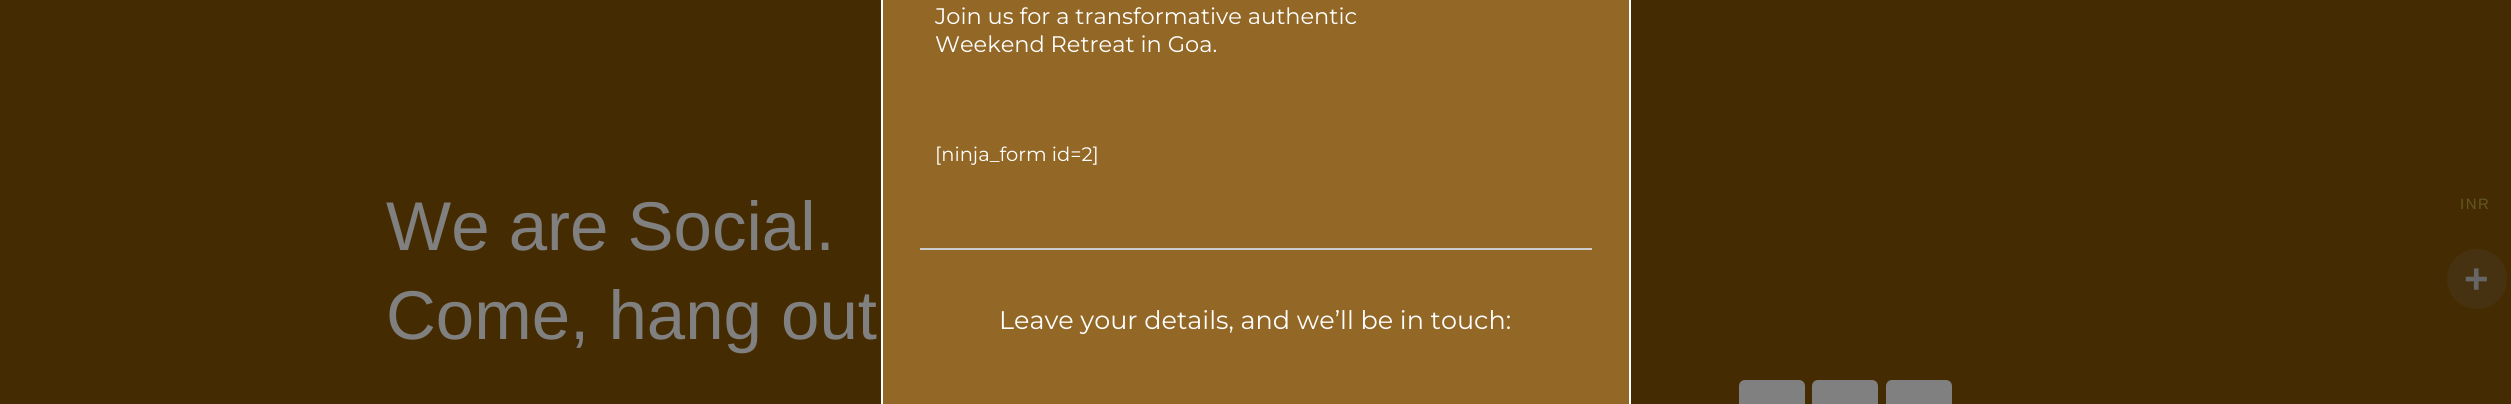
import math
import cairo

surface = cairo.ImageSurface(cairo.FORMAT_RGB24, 2511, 404)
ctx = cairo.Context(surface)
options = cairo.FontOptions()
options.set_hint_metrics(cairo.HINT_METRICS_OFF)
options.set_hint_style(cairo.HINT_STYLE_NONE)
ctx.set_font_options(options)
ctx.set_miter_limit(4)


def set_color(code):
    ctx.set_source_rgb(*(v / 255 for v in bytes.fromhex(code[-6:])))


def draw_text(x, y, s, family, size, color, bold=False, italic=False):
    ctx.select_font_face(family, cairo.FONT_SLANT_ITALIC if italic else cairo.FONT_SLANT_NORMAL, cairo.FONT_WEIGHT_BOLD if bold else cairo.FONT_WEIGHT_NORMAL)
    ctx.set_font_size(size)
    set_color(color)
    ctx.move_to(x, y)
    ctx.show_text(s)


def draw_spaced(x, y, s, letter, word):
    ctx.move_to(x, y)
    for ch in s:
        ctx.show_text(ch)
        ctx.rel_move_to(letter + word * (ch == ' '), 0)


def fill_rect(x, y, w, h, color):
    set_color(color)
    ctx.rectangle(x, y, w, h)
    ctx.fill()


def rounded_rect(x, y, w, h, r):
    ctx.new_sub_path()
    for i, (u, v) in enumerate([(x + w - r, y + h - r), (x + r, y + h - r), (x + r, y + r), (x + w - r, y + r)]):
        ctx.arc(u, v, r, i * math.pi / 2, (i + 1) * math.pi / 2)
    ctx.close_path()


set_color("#452b01")
ctx.paint()
draw_text(386, 250, "We are Social.", "Liberation Sans", 69, "#808080")
draw_text(386, 339, "Come, hang out", "Liberation Sans", 69, "#808080")
rounded_rect(1739, 380, 66, 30, 6)
ctx.fill()
rounded_rect(1812, 380, 66, 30, 6)
ctx.fill()
rounded_rect(1886, 380, 66, 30, 6)
ctx.fill()
set_color("#936726")
ctx.rectangle(882, -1, 748, 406)
ctx.fill_preserve()
set_color("#ffffff")
ctx.stroke()
draw_text(935, 24, "Join us for a transformative authentic", "Montserrat Thin", 22.5, "#ffffff")
draw_text(935, 52, "Weekend Retreat in Goa.", "Montserrat Thin", 22.5, "#ffffff")
draw_text(935, 161, "[ninja_form id=2]", "Montserrat Thin", 19.5, "#ffffff")
fill_rect(920, 248, 672, 2, "#cccccc")
draw_text(999, 329, "Leave your details, and we’ll be in touch:", "Montserrat Thin", 25.5, "#ffffff")
ctx.select_font_face("Liberation Sans")
ctx.set_font_size(15)
set_color("#625822")
draw_spaced(2460, 209, "INR", 1.5, 0)
set_color("#463210")
ctx.new_path()
ctx.arc(2477, 279, 30, 0, 2 * math.pi)
ctx.fill()
draw_text(2464, 293, "+", "Liberation Sans", 42, "#666666", bold=True)
surface.write_to_png("output.png")
